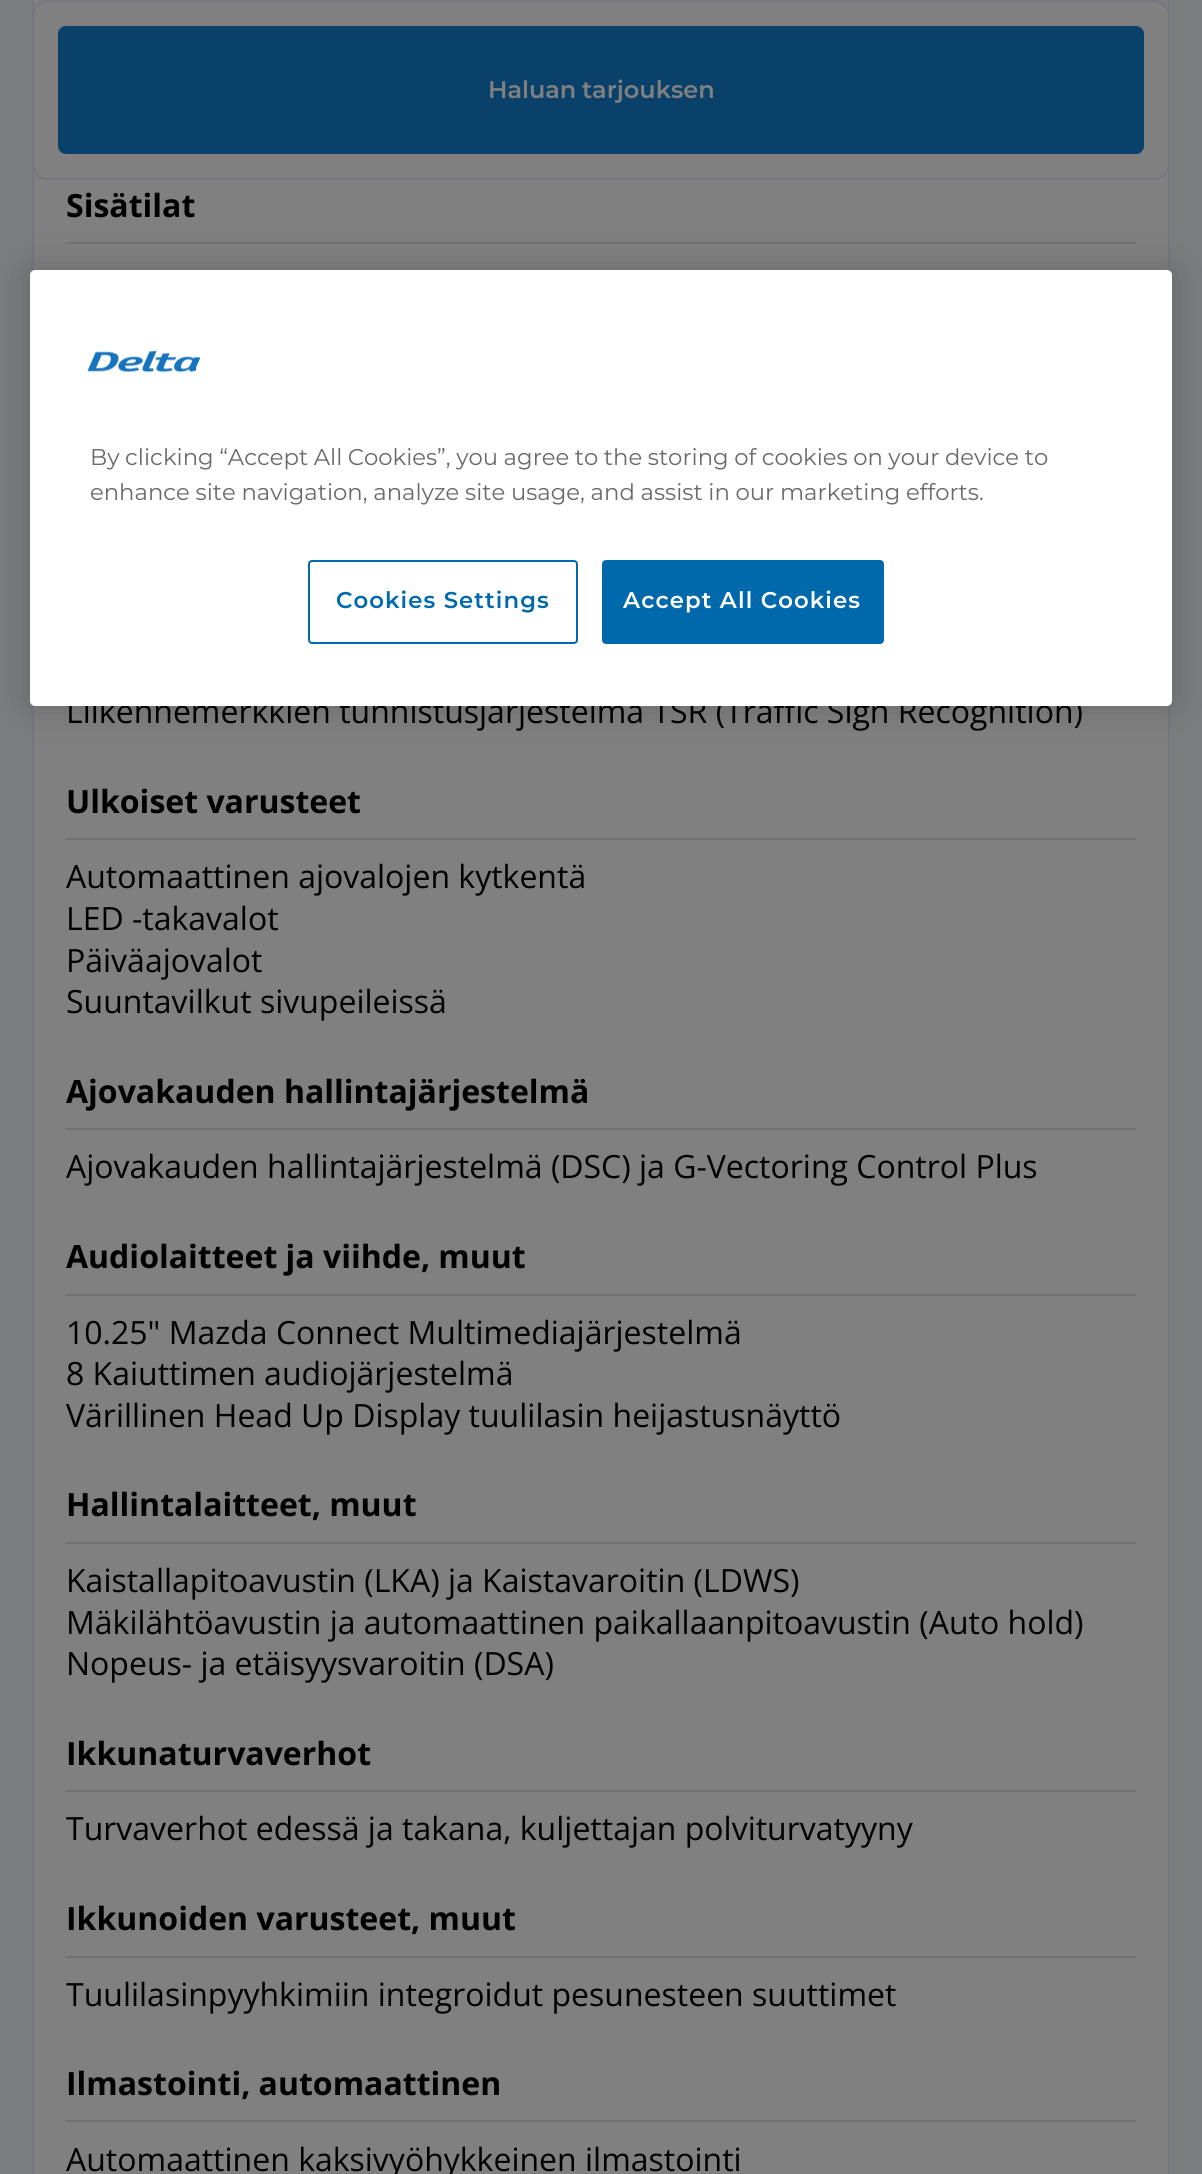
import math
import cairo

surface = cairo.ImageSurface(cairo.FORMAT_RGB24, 1202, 2174)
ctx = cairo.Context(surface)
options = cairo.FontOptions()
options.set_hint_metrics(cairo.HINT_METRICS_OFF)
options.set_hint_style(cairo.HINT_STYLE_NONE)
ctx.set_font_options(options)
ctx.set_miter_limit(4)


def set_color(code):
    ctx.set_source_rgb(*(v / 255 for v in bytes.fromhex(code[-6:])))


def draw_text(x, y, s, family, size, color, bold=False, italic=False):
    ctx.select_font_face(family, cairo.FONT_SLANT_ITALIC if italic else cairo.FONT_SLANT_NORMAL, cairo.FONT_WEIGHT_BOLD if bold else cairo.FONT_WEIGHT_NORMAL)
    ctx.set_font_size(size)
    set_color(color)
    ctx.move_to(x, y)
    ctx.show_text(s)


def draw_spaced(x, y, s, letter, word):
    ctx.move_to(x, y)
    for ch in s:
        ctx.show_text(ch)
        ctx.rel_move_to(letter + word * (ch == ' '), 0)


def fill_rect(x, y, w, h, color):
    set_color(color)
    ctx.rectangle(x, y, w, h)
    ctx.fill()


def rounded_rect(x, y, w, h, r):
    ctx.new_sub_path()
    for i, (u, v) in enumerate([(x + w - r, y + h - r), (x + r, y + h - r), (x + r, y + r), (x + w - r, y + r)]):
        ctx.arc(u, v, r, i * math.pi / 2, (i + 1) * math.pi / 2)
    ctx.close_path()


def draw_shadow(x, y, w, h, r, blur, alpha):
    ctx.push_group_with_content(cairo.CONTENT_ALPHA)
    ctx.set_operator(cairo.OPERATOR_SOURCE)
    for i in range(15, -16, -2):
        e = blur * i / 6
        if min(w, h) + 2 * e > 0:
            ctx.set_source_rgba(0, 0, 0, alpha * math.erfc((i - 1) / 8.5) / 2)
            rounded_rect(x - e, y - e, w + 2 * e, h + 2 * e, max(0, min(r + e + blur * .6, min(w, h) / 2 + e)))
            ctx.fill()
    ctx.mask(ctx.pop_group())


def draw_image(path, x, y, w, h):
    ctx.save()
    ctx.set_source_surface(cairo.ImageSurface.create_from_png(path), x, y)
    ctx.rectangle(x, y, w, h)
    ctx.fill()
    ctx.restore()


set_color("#7b7c7e")
ctx.paint()
set_color("#808080")
ctx.rectangle(33, -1, 1136, 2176)
ctx.fill_preserve()
set_color("#767680")
ctx.stroke()
set_color("#808080")
rounded_rect(33, 1, 1136, 178, 15)
ctx.fill_preserve()
set_color("#767680")
ctx.stroke()
set_color("#09416b")
rounded_rect(59, 27, 1084, 126, 7)
ctx.fill_preserve()
ctx.stroke()
ctx.select_font_face("Montserrat SemiBold")
ctx.set_font_size(24)
set_color("#808080")
draw_spaced(488, 98, "Haluan tarjouksen", 0, -1)
fill_rect(66, 242, 1070, 2, "#717171")
draw_text(66, 217, "Sisätilat", "Open Sans", 32, "#000000", bold=True)
draw_text(66, 723, "Liikennemerkkien tunnistusjärjestelmä TSR (Traffic Sign Recognition)", "Open Sans", 32, "#000000")
fill_rect(66, 838, 1070, 2, "#717171")
draw_text(66, 813, "Ulkoiset varusteet", "Open Sans", 32, "#000000", bold=True)
draw_text(66, 888, "Automaattinen ajovalojen kytkentä", "Open Sans", 32, "#000000")
draw_text(66, 930, "LED -takavalot", "Open Sans", 32, "#000000")
draw_text(66, 972, "Päiväajovalot", "Open Sans", 32, "#000000")
draw_text(66, 1013, "Suuntavilkut sivupeileissä", "Open Sans", 32, "#000000")
fill_rect(66, 1128, 1070, 2, "#717171")
draw_text(66, 1103, "Ajovakauden hallintajärjestelmä", "Open Sans", 32, "#000000", bold=True)
draw_text(66, 1178, "Ajovakauden hallintajärjestelmä (DSC) ja G-Vectoring Control Plus", "Open Sans", 32, "#000000")
fill_rect(66, 1294, 1070, 2, "#717171")
draw_text(66, 1268, "Audiolaitteet ja viihde, muut", "Open Sans", 32, "#000000", bold=True)
draw_text(66, 1344, "10.25\" Mazda Connect Multimediajärjestelmä", "Open Sans", 32, "#000000")
draw_text(66, 1385, "8 Kaiuttimen audiojärjestelmä", "Open Sans", 32, "#000000")
draw_text(66, 1427, "Värillinen Head Up Display tuulilasin heijastusnäyttö", "Open Sans", 32, "#000000")
fill_rect(66, 1542, 1070, 2, "#717171")
draw_text(66, 1516, "Hallintalaitteet, muut", "Open Sans", 32, "#000000", bold=True)
draw_text(66, 1592, "Kaistallapitoavustin (LKA) ja Kaistavaroitin (LDWS)", "Open Sans", 32, "#000000")
draw_text(66, 1634, "Mäkilähtöavustin ja automaattinen paikallaanpitoavustin (Auto hold)", "Open Sans", 32, "#000000")
draw_text(66, 1675, "Nopeus- ja etäisyysvaroitin (DSA)", "Open Sans", 32, "#000000")
fill_rect(66, 1790, 1070, 2, "#717171")
draw_text(66, 1765, "Ikkunaturvaverhot", "Open Sans", 32, "#000000", bold=True)
draw_text(66, 1840, "Turvaverhot edessä ja takana, kuljettajan polviturvatyyny", "Open Sans", 32, "#000000")
fill_rect(66, 1956, 1070, 2, "#717171")
draw_text(66, 1930, "Ikkunoiden varusteet, muut", "Open Sans", 32, "#000000", bold=True)
draw_text(66, 2006, "Tuulilasinpyyhkimiin integroidut pesunesteen suuttimet", "Open Sans", 32, "#000000")
fill_rect(66, 2120, 1070, 2, "#717171")
draw_text(66, 2095, "Ilmastointi, automaattinen", "Open Sans", 32, "#000000", bold=True)
draw_text(66, 2171, "Automaattinen kaksivyöhykkeinen ilmastointi", "Open Sans", 32, "#000000")
set_color("#000000")
draw_shadow(30, 270, 1142, 436, 5, 18, 0.2)
set_color("#ffffff")
rounded_rect(30, 270, 1142, 436, 5)
ctx.fill()
draw_image("assets/img1.png", 87, 350, 114, 23)
ctx.select_font_face("Montserrat")
ctx.set_font_size(22.75)
set_color("#696969")
draw_spaced(90, 465, "By clicking “Accept All Cookies”, you agree to the storing of cookies on your device to", 0, -0.4)
draw_spaced(90, 500, "enhance site navigation, analyze site usage, and assist in our marketing efforts.", 0, -0.25)
rounded_rect(309, 561, 268, 82, 3)
set_color("#0069ac")
ctx.stroke()
ctx.select_font_face("Montserrat SemiBold")
draw_spaced(336, 608, "Cookies Settings", 1.1, 0)
rounded_rect(603, 561, 280, 82, 3)
ctx.fill_preserve()
ctx.stroke()
set_color("#ffffff")
draw_spaced(623, 608, "Accept All Cookies", 1.1, 0)
surface.write_to_png("output.png")
